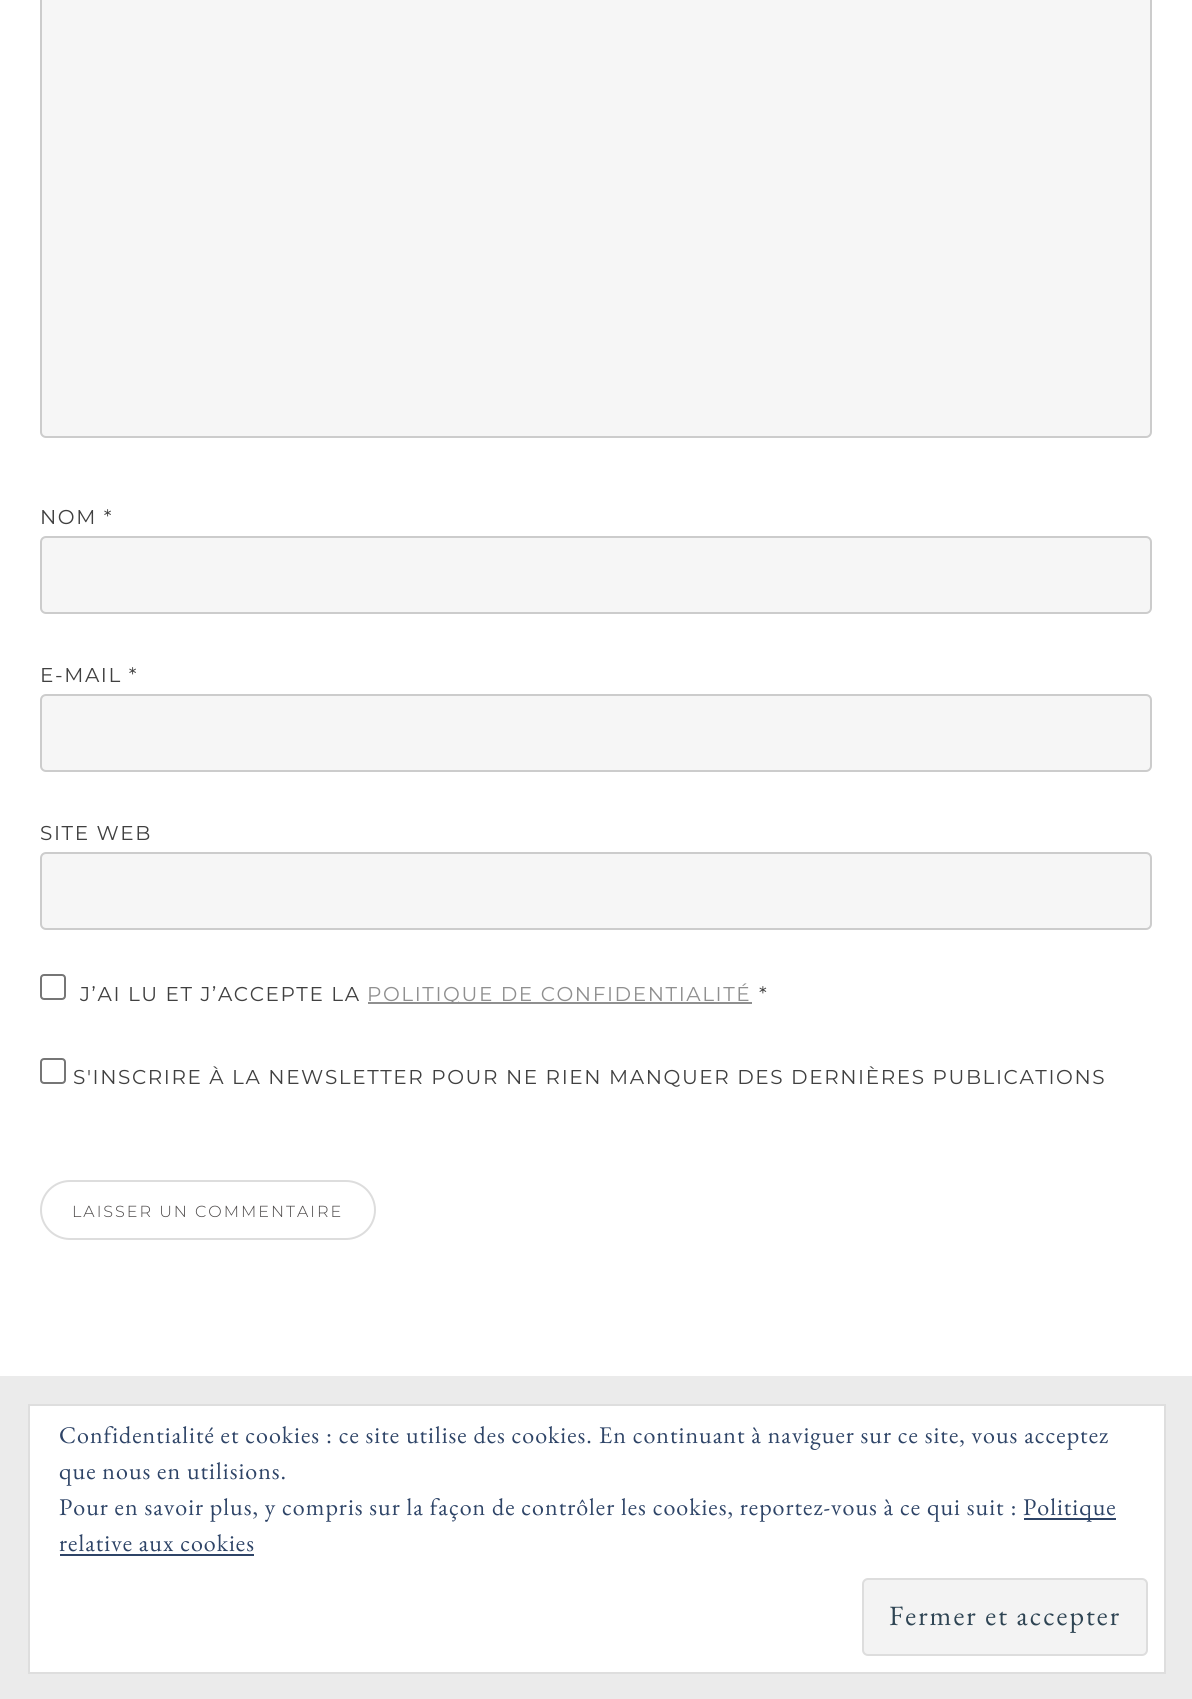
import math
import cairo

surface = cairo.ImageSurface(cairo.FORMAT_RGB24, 1192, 1699)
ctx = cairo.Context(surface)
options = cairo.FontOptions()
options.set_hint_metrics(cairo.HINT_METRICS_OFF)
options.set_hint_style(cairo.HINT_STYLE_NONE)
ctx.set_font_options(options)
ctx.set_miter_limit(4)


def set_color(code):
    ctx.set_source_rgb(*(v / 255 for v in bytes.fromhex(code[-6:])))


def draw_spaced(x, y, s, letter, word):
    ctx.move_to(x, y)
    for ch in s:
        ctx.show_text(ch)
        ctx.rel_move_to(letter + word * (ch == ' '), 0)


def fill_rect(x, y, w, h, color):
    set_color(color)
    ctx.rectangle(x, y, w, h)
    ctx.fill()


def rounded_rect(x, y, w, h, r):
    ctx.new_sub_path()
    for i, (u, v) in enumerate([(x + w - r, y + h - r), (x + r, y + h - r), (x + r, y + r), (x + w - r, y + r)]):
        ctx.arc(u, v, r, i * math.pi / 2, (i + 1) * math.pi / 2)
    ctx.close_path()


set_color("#ffffff")
ctx.paint()
set_color("#f6f6f6")
rounded_rect(41, -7, 1110, 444, 5)
ctx.fill_preserve()
set_color("#cccccc")
ctx.stroke()
ctx.select_font_face("Montserrat")
ctx.set_font_size(20)
set_color("#404040")
draw_spaced(40, 524, "NOM *", 1.6, 0)
set_color("#f6f6f6")
rounded_rect(41, 537, 1110, 76, 5)
ctx.fill_preserve()
set_color("#cccccc")
ctx.stroke()
set_color("#404040")
draw_spaced(40, 682, "E-MAIL *", 1.6, 0)
set_color("#f6f6f6")
rounded_rect(41, 695, 1110, 76, 5)
ctx.fill_preserve()
set_color("#cccccc")
ctx.stroke()
set_color("#404040")
draw_spaced(40, 840, "SITE WEB", 1.6, 0)
set_color("#f6f6f6")
rounded_rect(41, 853, 1110, 76, 5)
ctx.fill_preserve()
set_color("#cccccc")
ctx.stroke()
rounded_rect(41, 975, 24, 24, 3)
set_color("#767676")
ctx.stroke()
set_color("#404040")
draw_spaced(80, 1001, "J’AI LU ET J’ACCEPTE LA", 1.6, 0)
fill_rect(368, 1002, 384, 2, "#8f8f8f")
draw_spaced(367, 1001, "POLITIQUE DE CONFIDENTIALITÉ", 1.6, 0)
set_color("#404040")
draw_spaced(759, 1001, "*", 1.6, 0)
rounded_rect(41, 1059, 24, 24, 3)
set_color("#767676")
ctx.stroke()
set_color("#404040")
draw_spaced(73, 1084, "S'INSCRIRE À LA NEWSLETTER POUR NE RIEN MANQUER DES DERNIÈRES PUBLICATIONS", 1.6, 0)
rounded_rect(41, 1181, 334, 58, 29)
set_color("#dddddd")
ctx.stroke()
ctx.select_font_face("Montserrat Light")
ctx.set_font_size(16)
set_color("#4a4747")
draw_spaced(72, 1217, "LAISSER UN COMMENTAIRE", 2, 0)
fill_rect(0, 1376, 1192, 323, "#ebebeb")
set_color("#ffffff")
ctx.rectangle(29, 1405, 1136, 268)
ctx.fill_preserve()
set_color("#dedede")
ctx.stroke()
ctx.select_font_face("EB Garamond")
ctx.set_font_size(24)
set_color("#2e4467")
draw_spaced(59, 1443, "Confidentialité et cookies : ce site utilise des cookies. En continuant à naviguer sur ce site, vous acceptez", 1, 0)
draw_spaced(59, 1479, "que nous en utilisions.", 1, 0)
draw_spaced(59, 1515, "Pour en savoir plus, y compris sur la façon de contrôler les cookies, reportez-vous à ce qui suit :", 1, 0)
fill_rect(1024, 1518, 92, 2, "#2e4467")
draw_spaced(1023, 1515, "Politique", 1, 0)
draw_spaced(59, 1551, "relative aux cookies", 1, 0)
fill_rect(60, 1554, 194, 2, "#2e4467")
set_color("#f3f3f3")
rounded_rect(863, 1579, 284, 76, 5)
ctx.fill_preserve()
set_color("#dddddd")
ctx.stroke()
ctx.set_font_size(28)
set_color("#2e4453")
draw_spaced(889, 1625, "Fermer et accepter", 2, 0)
surface.write_to_png("output.png")
